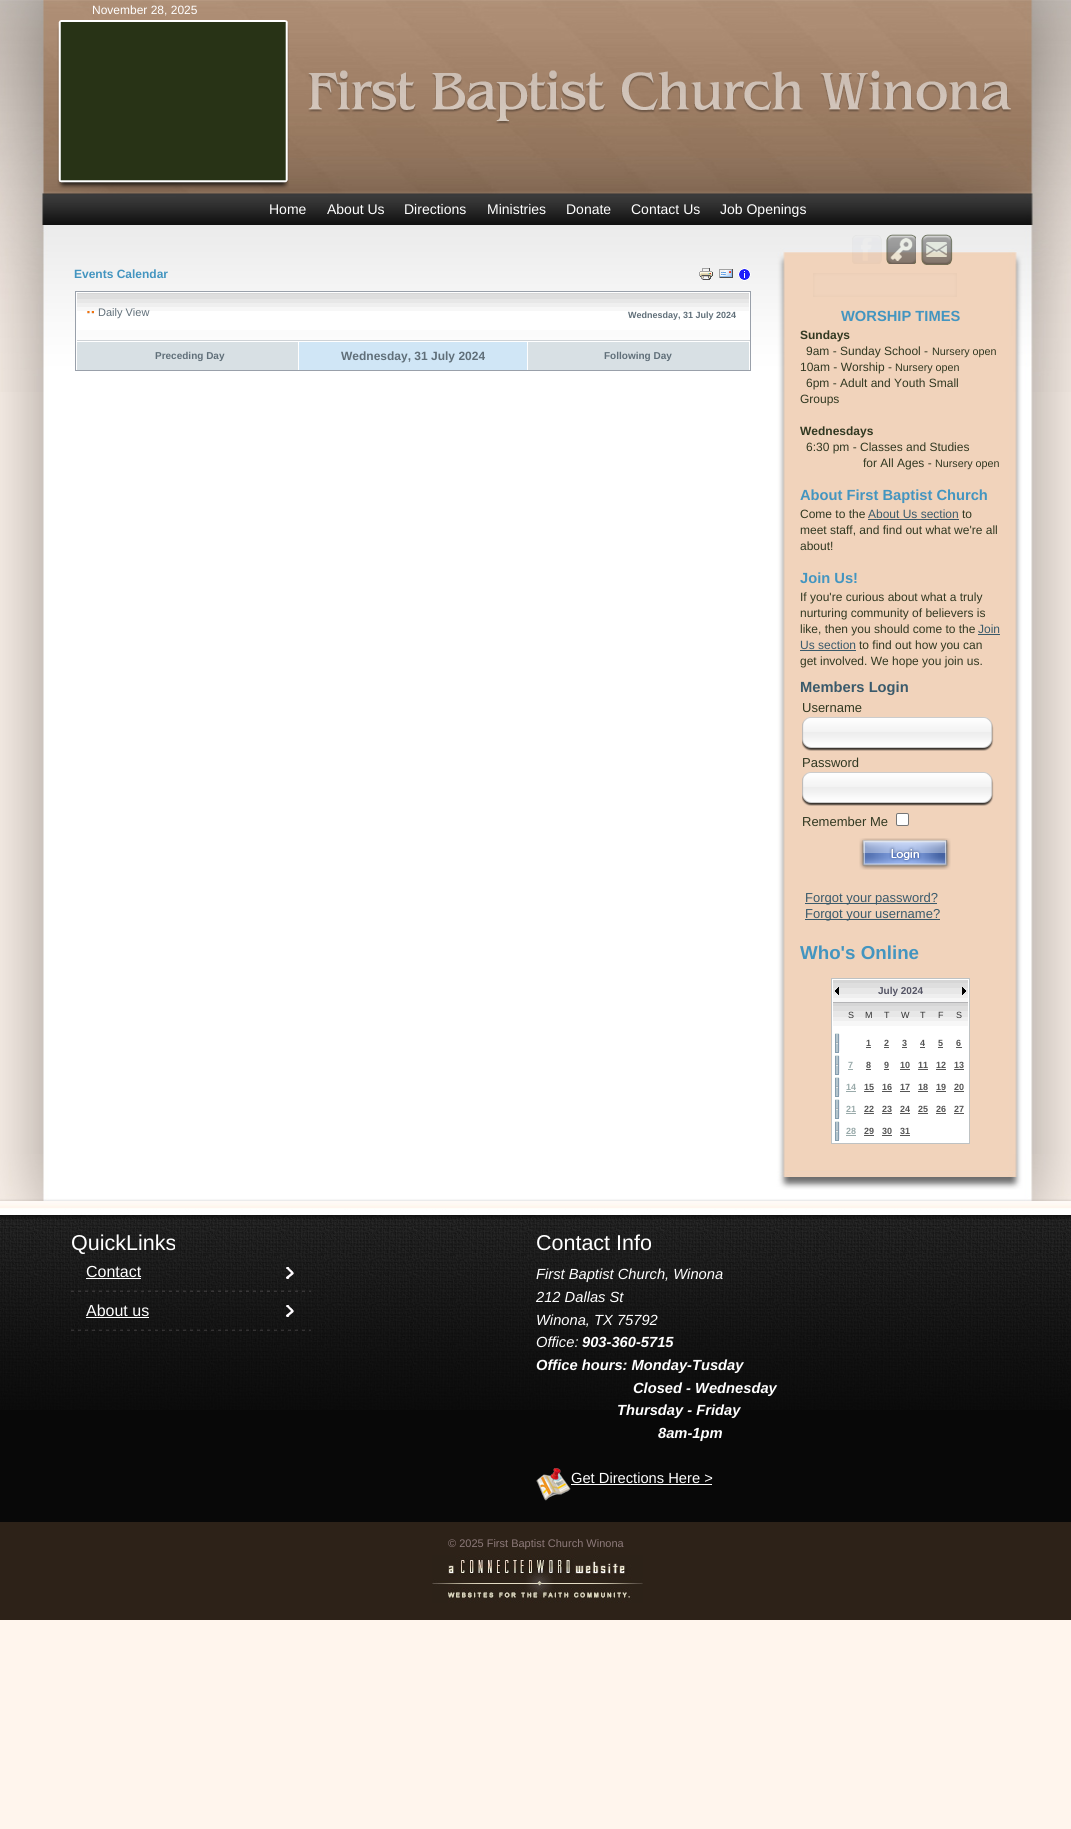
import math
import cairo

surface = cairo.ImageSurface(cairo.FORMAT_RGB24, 1071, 1829)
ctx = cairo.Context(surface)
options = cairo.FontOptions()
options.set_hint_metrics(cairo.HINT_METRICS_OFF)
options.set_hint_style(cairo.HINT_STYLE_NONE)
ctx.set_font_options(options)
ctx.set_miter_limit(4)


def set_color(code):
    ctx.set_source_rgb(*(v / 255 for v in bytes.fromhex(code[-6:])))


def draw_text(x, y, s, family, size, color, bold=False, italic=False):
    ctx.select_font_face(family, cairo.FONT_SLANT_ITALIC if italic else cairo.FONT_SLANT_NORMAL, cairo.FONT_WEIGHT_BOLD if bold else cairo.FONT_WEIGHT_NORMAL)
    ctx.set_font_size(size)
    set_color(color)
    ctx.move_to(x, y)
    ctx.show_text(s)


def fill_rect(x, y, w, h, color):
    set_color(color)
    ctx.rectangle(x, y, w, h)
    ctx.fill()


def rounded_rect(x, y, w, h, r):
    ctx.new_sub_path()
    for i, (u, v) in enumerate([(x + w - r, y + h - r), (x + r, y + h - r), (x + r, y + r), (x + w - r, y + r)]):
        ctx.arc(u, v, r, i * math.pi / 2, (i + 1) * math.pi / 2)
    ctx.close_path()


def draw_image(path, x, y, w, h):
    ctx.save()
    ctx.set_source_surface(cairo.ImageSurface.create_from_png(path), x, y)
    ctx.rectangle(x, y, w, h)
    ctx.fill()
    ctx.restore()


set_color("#fff5ed")
ctx.paint()
draw_image("assets/img1.png", 0, 392, 1071, 762)
draw_image("assets/img2.png", 0, 0, 1071, 392)
draw_text(92, 14, "November 28, 2025", "Liberation Sans", 12, "#ffffff")
draw_image("assets/img3.png", 57, 20, 232, 169)
draw_image("assets/img4.png", 308, 70, 704, 54)
draw_image("assets/img5.png", 852, 235, 30, 29)
draw_image("assets/img6.png", 886, 234, 30, 30)
draw_image("assets/img7.png", 921, 234, 32, 31)
draw_image("assets/img8.png", 813, 273, 144, 24)
draw_text(269, 214, "Home", "Liberation Sans", 14, "#ffffff")
draw_text(327, 214, "About Us", "Liberation Sans", 14, "#ffffff")
draw_text(404, 214, "Directions", "Liberation Sans", 14, "#ffffff")
draw_text(487, 214, "Ministries", "Liberation Sans", 14, "#ffffff")
draw_text(566, 214, "Donate", "Liberation Sans", 14, "#ffffff")
draw_text(631, 214, "Contact Us", "Liberation Sans", 14, "#ffffff")
draw_text(720, 214, "Job Openings", "Liberation Sans", 14, "#ffffff")
draw_text(74, 278, "Events Calendar", "Liberation Sans", 12, "#4395c0", bold=True)
draw_image("assets/img9.png", 699, 268, 14, 12)
draw_image("assets/img10.png", 719, 269, 14, 9)
draw_image("assets/img11.png", 738, 268, 13, 13)
ctx.rectangle(75.5, 291.5, 675, 79)
set_color("#99a0aa")
ctx.set_line_width(1)
ctx.stroke()
draw_image("assets/img12.png", 77, 292, 672, 38)
fill_rect(749, 292, 1, 49, "#ffffff")
fill_rect(76, 340, 674, 1, "#ced2d6")
fill_rect(76, 292, 1, 49, "#ffffff")
draw_image("assets/img13.png", 87, 311, 7, 3)
draw_text(98, 316, "Daily View", "Liberation Sans", 11, "#606f79")
draw_text(628, 318, "Wednesday, 31 July 2024", "Liberation Sans", 9, "#606f79", bold=True)
fill_rect(77, 342, 221, 28, "#d8e0e4")
fill_rect(76, 341, 674, 1, "#ffffff")
fill_rect(76, 341, 1, 4, "#ffffff")
draw_text(155, 359, "Preceding Day", "Liberation Sans", 10, "#606f79", bold=True)
fill_rect(299, 342, 228, 28, "#d0e6f6")
fill_rect(298, 341, 1, 4, "#ffffff")
draw_text(341, 360, "Wednesday, 31 July 2024", "Liberation Sans", 12, "#606f79", bold=True)
fill_rect(528, 342, 221, 28, "#d8e0e4")
fill_rect(749, 341, 1, 4, "#ffffff")
fill_rect(527, 341, 1, 4, "#ffffff")
draw_text(604, 359, "Following Day", "Liberation Sans", 10, "#606f79", bold=True)
draw_text(841, 321, "WORSHIP TIMES", "Liberation Sans", 14.7, "#4395c0", bold=True)
draw_text(800, 339, "Sundays", "Liberation Sans", 12, "#313821", bold=True)
draw_text(806, 355, "9am - Sunday School -", "Liberation Sans", 12, "#313821")
draw_text(932, 355, "Nursery open", "Liberation Sans", 10.75, "#313821")
draw_text(800, 371, "10am - Worship -", "Liberation Sans", 12, "#313821")
draw_text(895, 371, "Nursery open", "Liberation Sans", 10.75, "#313821")
draw_text(806, 387, "6pm - Adult and Youth Small", "Liberation Sans", 12, "#313821")
draw_text(800, 403, "Groups", "Liberation Sans", 12, "#313821")
draw_text(800, 435, "Wednesdays", "Liberation Sans", 12, "#313821", bold=True)
draw_text(806, 451, "6:30 pm - Classes and Studies", "Liberation Sans", 12, "#313821")
draw_text(863, 467, "for All Ages -", "Liberation Sans", 12, "#313821")
draw_text(935, 467, "Nursery open", "Liberation Sans", 10.75, "#313821")
draw_text(800, 500, "About First Baptist Church", "Liberation Sans", 14.7, "#4395c0", bold=True)
draw_text(800, 518, "Come to the", "Liberation Sans", 12, "#313821")
draw_text(868, 518, "About Us section", "Liberation Sans", 12, "#3a5a6b")
fill_rect(868, 519, 91, 1, "#3a5a6b")
draw_text(962, 518, "to", "Liberation Sans", 12, "#313821")
draw_text(800, 534, "meet staff, and find out what we're all", "Liberation Sans", 12, "#313821")
draw_text(800, 550, "about!", "Liberation Sans", 12, "#313821")
draw_text(800, 583, "Join Us!", "Liberation Sans", 14.7, "#4395c0", bold=True)
draw_text(800, 601, "If you're curious about what a truly", "Liberation Sans", 12, "#313821")
draw_text(800, 617, "nurturing community of believers is", "Liberation Sans", 12, "#313821")
draw_text(800, 633, "like, then you should come to the", "Liberation Sans", 12, "#313821")
draw_text(978, 633, "Join", "Liberation Sans", 12, "#3a5a6b")
fill_rect(978, 634, 22, 1, "#3a5a6b")
draw_text(800, 649, "Us section", "Liberation Sans", 12, "#3a5a6b")
fill_rect(800, 650, 56, 1, "#3a5a6b")
draw_text(859, 649, "to find out how you can", "Liberation Sans", 12, "#313821")
draw_text(800, 665, "get involved. We hope you join us.", "Liberation Sans", 12, "#313821")
draw_text(800, 692, "Members Login", "Liberation Sans", 14.7, "#3a5a6b", bold=True)
draw_text(802, 712, "Username", "Liberation Sans", 13, "#313821")
draw_image("assets/img14.png", 802, 717, 192, 34)
draw_text(802, 767, "Password", "Liberation Sans", 13, "#313821")
draw_image("assets/img14.png", 802, 772, 192, 34)
draw_text(802, 826, "Remember Me", "Liberation Sans", 13, "#313821")
set_color("#ffffff")
rounded_rect(896.5, 813.5, 12, 12, 1.5)
ctx.fill_preserve()
set_color("#767676")
ctx.stroke()
draw_image("assets/img15.png", 859, 838, 92, 32)
fill_rect(805, 903, 132, 1, "#3a5a6b")
draw_text(805, 902, "Forgot your password?", "Liberation Sans", 13, "#3a5a6b")
fill_rect(805, 919, 135, 1, "#3a5a6b")
draw_text(805, 918, "Forgot your username?", "Liberation Sans", 13, "#3a5a6b")
draw_text(800, 959, "Who's Online", "Liberation Sans", 18.75, "#4395c0", bold=True)
set_color("#ffffff")
ctx.rectangle(831.5, 978.5, 138, 165)
ctx.fill_preserve()
set_color("#bec2c3")
ctx.stroke()
draw_image("assets/img16.png", 833, 980, 135, 22)
fill_rect(833, 1002, 135, 1, "#b4b4b6")
draw_image("assets/img17.png", 835, 987, 4, 8)
draw_text(878, 994, "July 2024", "Liberation Sans", 10, "#565666", bold=True)
draw_image("assets/img18.png", 962, 987, 4, 8)
draw_image("assets/img19.png", 833, 1003, 135, 23)
draw_text(848, 1018, "S", "Liberation Sans", 9, "#333333")
draw_text(865, 1018, "M", "Liberation Sans", 9, "#333333")
draw_text(884, 1018, "T", "Liberation Sans", 9, "#333333")
draw_text(901, 1018, "W", "Liberation Sans", 9, "#333333")
draw_text(920, 1018, "T", "Liberation Sans", 9, "#333333")
draw_text(938, 1018, "F", "Liberation Sans", 9, "#333333")
draw_text(956, 1018, "S", "Liberation Sans", 9, "#333333")
draw_image("assets/img20.png", 835, 1033, 5, 20)
draw_text(866, 1046, "1", "Liberation Sans", 9, "#555555", bold=True)
fill_rect(866, 1047, 5, 1, "#555555")
draw_text(884, 1046, "2", "Liberation Sans", 9, "#555555", bold=True)
fill_rect(884, 1047, 5, 1, "#555555")
draw_text(902, 1046, "3", "Liberation Sans", 9, "#555555", bold=True)
fill_rect(902, 1047, 5, 1, "#555555")
draw_text(920, 1046, "4", "Liberation Sans", 9, "#555555", bold=True)
fill_rect(920, 1047, 5, 1, "#555555")
draw_text(938, 1046, "5", "Liberation Sans", 9, "#555555", bold=True)
fill_rect(938, 1047, 5, 1, "#555555")
draw_text(956, 1046, "6", "Liberation Sans", 9, "#555555", bold=True)
fill_rect(956, 1047, 6, 1, "#555555")
draw_image("assets/img20.png", 835, 1055, 5, 20)
draw_text(848, 1068, "7", "Liberation Sans", 9, "#99aaaa", bold=True)
fill_rect(848, 1069, 5, 1, "#99aaaa")
draw_text(866, 1068, "8", "Liberation Sans", 9, "#555555", bold=True)
fill_rect(866, 1069, 5, 1, "#555555")
draw_text(884, 1068, "9", "Liberation Sans", 9, "#555555", bold=True)
fill_rect(884, 1069, 5, 1, "#555555")
draw_text(900, 1068, "10", "Liberation Sans", 9, "#555555", bold=True)
fill_rect(900, 1069, 10, 1, "#555555")
draw_text(918, 1068, "11", "Liberation Sans", 9, "#555555", bold=True)
fill_rect(918, 1069, 10, 1, "#555555")
draw_text(936, 1068, "12", "Liberation Sans", 9, "#555555", bold=True)
fill_rect(936, 1069, 10, 1, "#555555")
draw_text(954, 1068, "13", "Liberation Sans", 9, "#555555", bold=True)
fill_rect(954, 1069, 10, 1, "#555555")
draw_image("assets/img20.png", 835, 1077, 5, 20)
draw_text(846, 1090, "14", "Liberation Sans", 9, "#99aaaa", bold=True)
fill_rect(846, 1091, 10, 1, "#99aaaa")
draw_text(864, 1090, "15", "Liberation Sans", 9, "#555555", bold=True)
fill_rect(864, 1091, 10, 1, "#555555")
draw_text(882, 1090, "16", "Liberation Sans", 9, "#555555", bold=True)
fill_rect(882, 1091, 10, 1, "#555555")
draw_text(900, 1090, "17", "Liberation Sans", 9, "#555555", bold=True)
fill_rect(900, 1091, 10, 1, "#555555")
draw_text(918, 1090, "18", "Liberation Sans", 9, "#555555", bold=True)
fill_rect(918, 1091, 10, 1, "#555555")
draw_text(936, 1090, "19", "Liberation Sans", 9, "#555555", bold=True)
fill_rect(936, 1091, 10, 1, "#555555")
draw_text(954, 1090, "20", "Liberation Sans", 9, "#555555", bold=True)
fill_rect(954, 1091, 10, 1, "#555555")
draw_image("assets/img20.png", 835, 1099, 5, 20)
draw_text(846, 1112, "21", "Liberation Sans", 9, "#99aaaa", bold=True)
fill_rect(846, 1113, 10, 1, "#99aaaa")
draw_text(864, 1112, "22", "Liberation Sans", 9, "#555555", bold=True)
fill_rect(864, 1113, 10, 1, "#555555")
draw_text(882, 1112, "23", "Liberation Sans", 9, "#555555", bold=True)
fill_rect(882, 1113, 10, 1, "#555555")
draw_text(900, 1112, "24", "Liberation Sans", 9, "#555555", bold=True)
fill_rect(900, 1113, 10, 1, "#555555")
draw_text(918, 1112, "25", "Liberation Sans", 9, "#555555", bold=True)
fill_rect(918, 1113, 10, 1, "#555555")
draw_text(936, 1112, "26", "Liberation Sans", 9, "#555555", bold=True)
fill_rect(936, 1113, 10, 1, "#555555")
draw_text(954, 1112, "27", "Liberation Sans", 9, "#555555", bold=True)
fill_rect(954, 1113, 10, 1, "#555555")
draw_image("assets/img20.png", 835, 1121, 5, 20)
draw_text(846, 1134, "28", "Liberation Sans", 9, "#99aaaa", bold=True)
fill_rect(846, 1135, 10, 1, "#99aaaa")
draw_text(864, 1134, "29", "Liberation Sans", 9, "#555555", bold=True)
fill_rect(864, 1135, 10, 1, "#555555")
draw_text(882, 1134, "30", "Liberation Sans", 9, "#555555", bold=True)
fill_rect(882, 1135, 10, 1, "#555555")
draw_text(900, 1134, "31", "Liberation Sans", 9, "#555555", bold=True)
fill_rect(900, 1135, 10, 1, "#555555")
draw_image("assets/img21.png", 0, 1154, 1071, 47)
fill_rect(0, 1410, 1071, 112, "#080808")
draw_image("assets/img22.png", 0, 1201, 1071, 209)
draw_text(71, 1250, "QuickLinks", "Liberation Sans", 21.5, "#ffffff")
draw_text(536, 1250, "Contact Info", "Liberation Sans", 21.5, "#ffffff")
draw_image("assets/img23.png", 71, 1290, 240, 2)
draw_image("assets/img24.png", 286, 1267, 8, 12)
draw_text(86, 1277, "Contact", "Liberation Sans", 16, "#ffffff")
fill_rect(86, 1278, 55, 1, "#ffffff")
draw_image("assets/img25.png", 71, 1329, 240, 2)
draw_image("assets/img26.png", 286, 1305, 8, 12)
draw_text(86, 1316, "About us", "Liberation Sans", 16, "#ffffff")
fill_rect(86, 1317, 63, 1, "#ffffff")
draw_text(536, 1279, "First Baptist Church, Winona", "Liberation Sans", 14.7, "#ffffff", italic=True)
draw_text(536, 1302, "212 Dallas St", "Liberation Sans", 14.7, "#ffffff", italic=True)
draw_text(536, 1325, "Winona, TX 75792", "Liberation Sans", 14.7, "#ffffff", italic=True)
draw_text(536, 1347, "Office:", "Liberation Sans", 14.7, "#ffffff", italic=True)
draw_text(582, 1347, "903-360-5715", "Liberation Sans", 14.7, "#ffffff", bold=True, italic=True)
draw_text(536, 1370, "Office hours: Monday-Tusday", "Liberation Sans", 14.7, "#ffffff", bold=True, italic=True)
draw_text(633, 1393, "Closed - Wednesday", "Liberation Sans", 14.7, "#ffffff", bold=True, italic=True)
draw_text(617, 1415, "Thursday - Friday", "Liberation Sans", 14.7, "#ffffff", bold=True, italic=True)
draw_text(658, 1438, "8am-1pm", "Liberation Sans", 14.7, "#ffffff", bold=True, italic=True)
draw_image("assets/img27.png", 536, 1468, 35, 33)
draw_text(571, 1483, "Get Directions Here >", "Liberation Sans", 14.7, "#ffffff")
fill_rect(571, 1484, 141, 1, "#ffffff")
fill_rect(0, 1522, 1071, 98, "#2d2218")
draw_text(448, 1547, "© 2025 First Baptist Church Winona", "Liberation Sans", 11, "#8c7979")
draw_image("assets/img28.png", 432, 1555, 211, 48)
surface.write_to_png("output.png")
